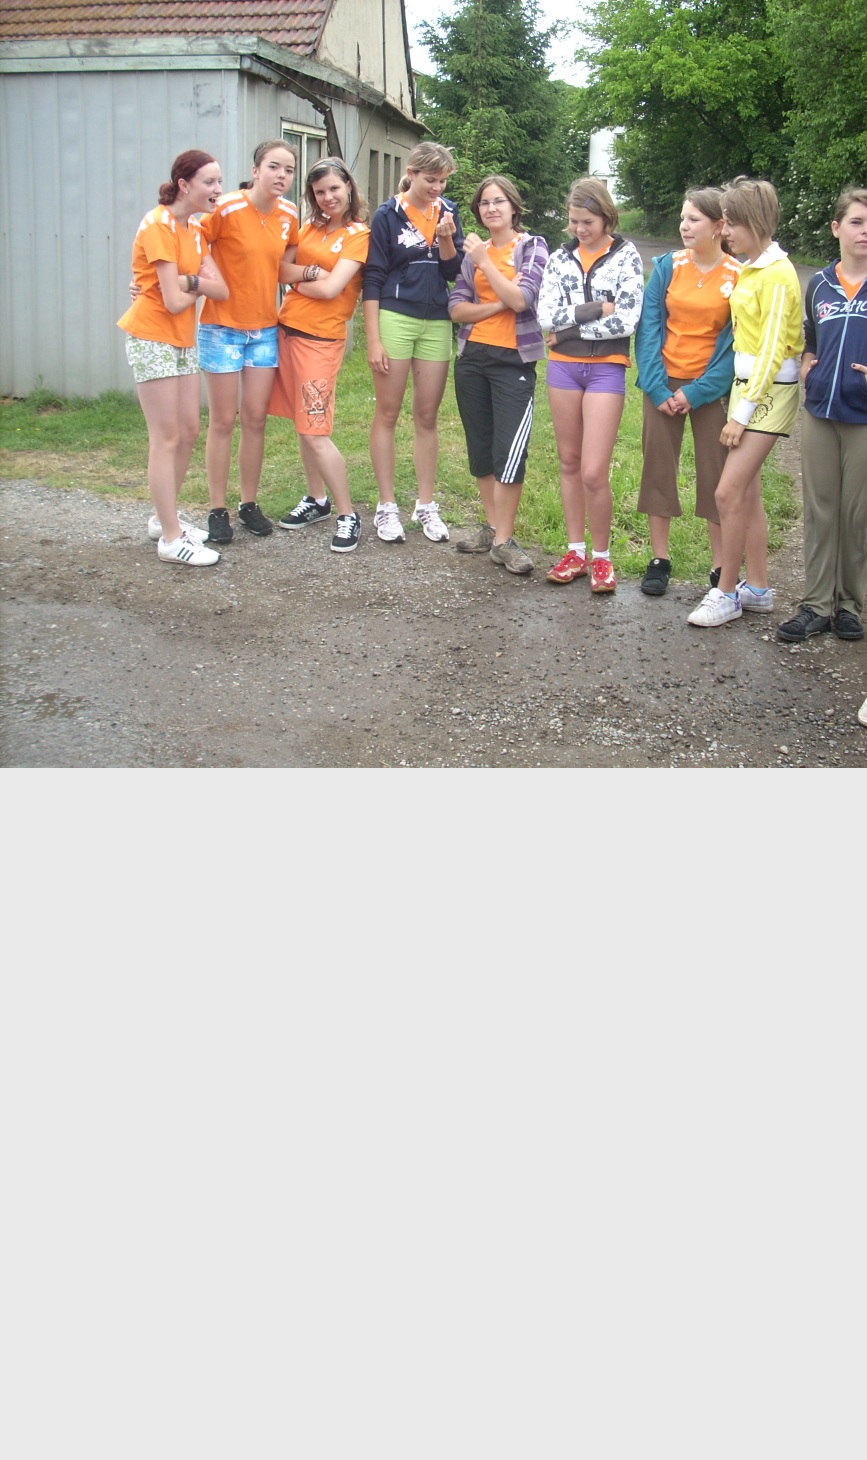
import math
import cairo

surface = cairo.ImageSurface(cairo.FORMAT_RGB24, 867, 1460)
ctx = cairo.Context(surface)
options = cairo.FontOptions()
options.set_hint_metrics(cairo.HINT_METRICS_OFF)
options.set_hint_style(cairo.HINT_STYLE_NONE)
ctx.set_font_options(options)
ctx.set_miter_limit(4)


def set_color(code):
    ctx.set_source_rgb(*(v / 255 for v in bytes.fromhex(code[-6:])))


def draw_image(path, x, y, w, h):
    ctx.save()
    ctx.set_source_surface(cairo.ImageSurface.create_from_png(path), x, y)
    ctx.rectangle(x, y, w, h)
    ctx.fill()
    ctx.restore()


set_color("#eaeaea")
ctx.paint()
draw_image("assets/img1.png", 0, 0, 867, 768)
surface.write_to_png("output.png")
